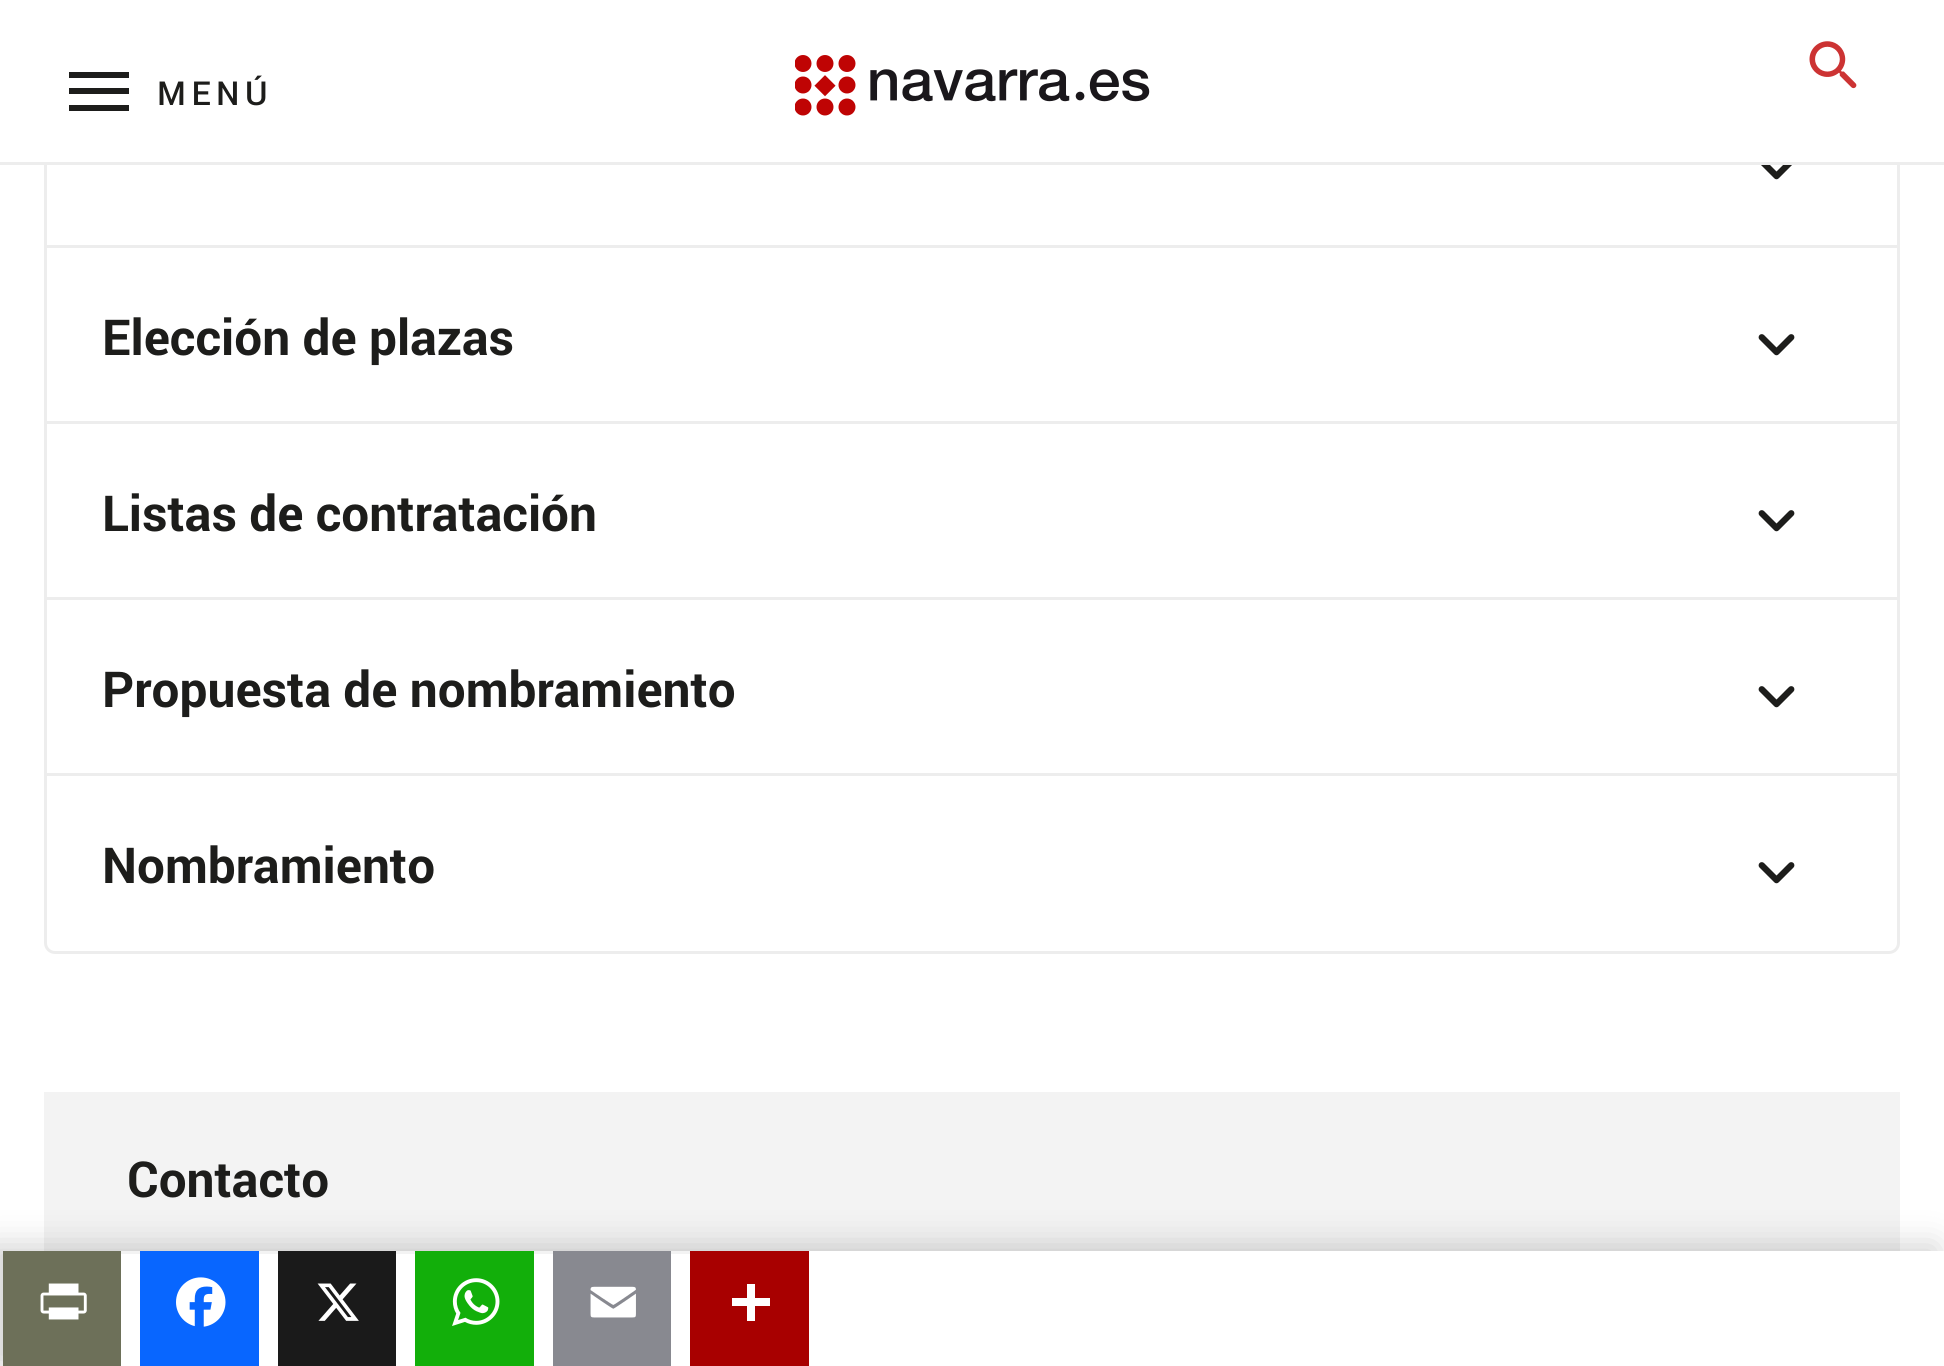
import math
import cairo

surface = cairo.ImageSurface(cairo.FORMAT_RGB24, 1944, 1366)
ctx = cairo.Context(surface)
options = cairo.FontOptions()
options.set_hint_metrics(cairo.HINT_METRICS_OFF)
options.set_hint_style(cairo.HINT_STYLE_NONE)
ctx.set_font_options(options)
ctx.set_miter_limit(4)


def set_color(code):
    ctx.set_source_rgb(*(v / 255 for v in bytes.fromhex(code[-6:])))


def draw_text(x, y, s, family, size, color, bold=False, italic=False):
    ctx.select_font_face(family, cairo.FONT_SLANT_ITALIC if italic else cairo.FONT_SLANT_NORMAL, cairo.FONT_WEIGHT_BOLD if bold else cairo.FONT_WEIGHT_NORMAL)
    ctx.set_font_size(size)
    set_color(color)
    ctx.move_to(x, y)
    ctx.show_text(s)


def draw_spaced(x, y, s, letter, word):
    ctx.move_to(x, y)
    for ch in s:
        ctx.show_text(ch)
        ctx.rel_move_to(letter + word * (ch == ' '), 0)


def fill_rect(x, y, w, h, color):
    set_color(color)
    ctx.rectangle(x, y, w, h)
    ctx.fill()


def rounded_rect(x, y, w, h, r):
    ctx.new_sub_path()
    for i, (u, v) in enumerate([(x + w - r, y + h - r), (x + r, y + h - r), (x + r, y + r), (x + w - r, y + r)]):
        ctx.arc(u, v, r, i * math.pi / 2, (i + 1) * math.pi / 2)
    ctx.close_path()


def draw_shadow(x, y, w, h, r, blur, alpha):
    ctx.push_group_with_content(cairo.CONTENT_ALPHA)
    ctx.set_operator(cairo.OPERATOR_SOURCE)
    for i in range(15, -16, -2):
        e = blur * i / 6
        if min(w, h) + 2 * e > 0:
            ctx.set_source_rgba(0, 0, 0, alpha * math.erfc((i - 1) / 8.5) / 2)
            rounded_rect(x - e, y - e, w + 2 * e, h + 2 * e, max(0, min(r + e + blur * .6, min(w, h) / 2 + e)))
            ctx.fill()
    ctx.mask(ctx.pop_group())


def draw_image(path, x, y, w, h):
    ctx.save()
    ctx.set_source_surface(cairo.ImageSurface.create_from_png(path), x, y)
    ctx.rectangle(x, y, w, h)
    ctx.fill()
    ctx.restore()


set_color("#ffffff")
ctx.paint()
rounded_rect(45.5, -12.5, 1853, 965, 9.5)
set_color("#ededed")
ctx.set_line_width(3)
ctx.stroke()
fill_rect(44, 0, 1856, 162, "#ffffff")
fill_rect(0, 162, 1944, 3, "#ededed")
fill_rect(69, 72, 60, 6, "#1d1d1b")
ctx.select_font_face("Roboto Medium")
ctx.set_font_size(33)
draw_spaced(157, 105, "MENÚ", 5.5, 0)
fill_rect(69, 88, 60, 6, "#1d1d1b")
fill_rect(69, 105, 60, 6, "#1d1d1b")
draw_image("assets/img1.png", 795, 55, 355, 61)
draw_image("assets/img2.png", 1809, 41, 48, 48)
fill_rect(47, 245, 1851, 3, "#ededed")
draw_image("assets/img3.png", 1761, 165, 31, 15)
fill_rect(47, 421, 1851, 3, "#ededed")
draw_text(102, 355, "Elección de plazas", "Roboto", 49.5, "#1d1d1b", bold=True)
draw_image("assets/img4.png", 1758, 334, 37, 22)
fill_rect(47, 597, 1851, 3, "#ededed")
draw_text(102, 531, "Listas de contratación", "Roboto", 49.5, "#1d1d1b", bold=True)
draw_image("assets/img4.png", 1758, 510, 37, 22)
fill_rect(47, 773, 1851, 3, "#ededed")
draw_text(102, 707, "Propuesta de nombramiento", "Roboto", 49.5, "#1d1d1b", bold=True)
draw_image("assets/img4.png", 1758, 686, 37, 22)
draw_text(102, 883, "Nombramiento", "Roboto", 49.5, "#1d1d1b", bold=True)
draw_image("assets/img4.png", 1758, 862, 37, 22)
fill_rect(44, 1092, 1856, 159, "#f3f3f3")
draw_text(127, 1197, "Contacto", "Roboto", 49.5, "#1d1d1b", bold=True)
set_color("#000000")
draw_shadow(-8, 1246, 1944, 118, 0, 16.5, 0.18)
fill_rect(121, 1251, 1823, 115, "#ffffff")
fill_rect(3, 1251, 118, 115, "#6d7059")
draw_image("assets/img5.png", 40, 1283, 47, 37)
fill_rect(121, 1251, 19, 3, "#f3f3f3")
fill_rect(140, 1251, 119, 115, "#0866ff")
draw_image("assets/img6.png", 176, 1277, 50, 50)
fill_rect(259, 1251, 19, 3, "#f3f3f3")
fill_rect(278, 1251, 118, 115, "#1a1a1a")
draw_image("assets/img7.png", 317, 1283, 42, 38)
fill_rect(396, 1251, 19, 3, "#f3f3f3")
fill_rect(415, 1251, 119, 115, "#12af0a")
draw_image("assets/img8.png", 452, 1278, 48, 48)
fill_rect(534, 1251, 19, 3, "#f3f3f3")
fill_rect(553, 1251, 118, 115, "#888990")
draw_image("assets/img9.png", 590, 1286, 46, 32)
fill_rect(671, 1251, 19, 3, "#f3f3f3")
fill_rect(690, 1251, 119, 115, "#a80000")
fill_rect(747, 1284, 8, 37, "#ffffff")
fill_rect(732, 1298, 38, 8, "#ffffff")
surface.write_to_png("output.png")
